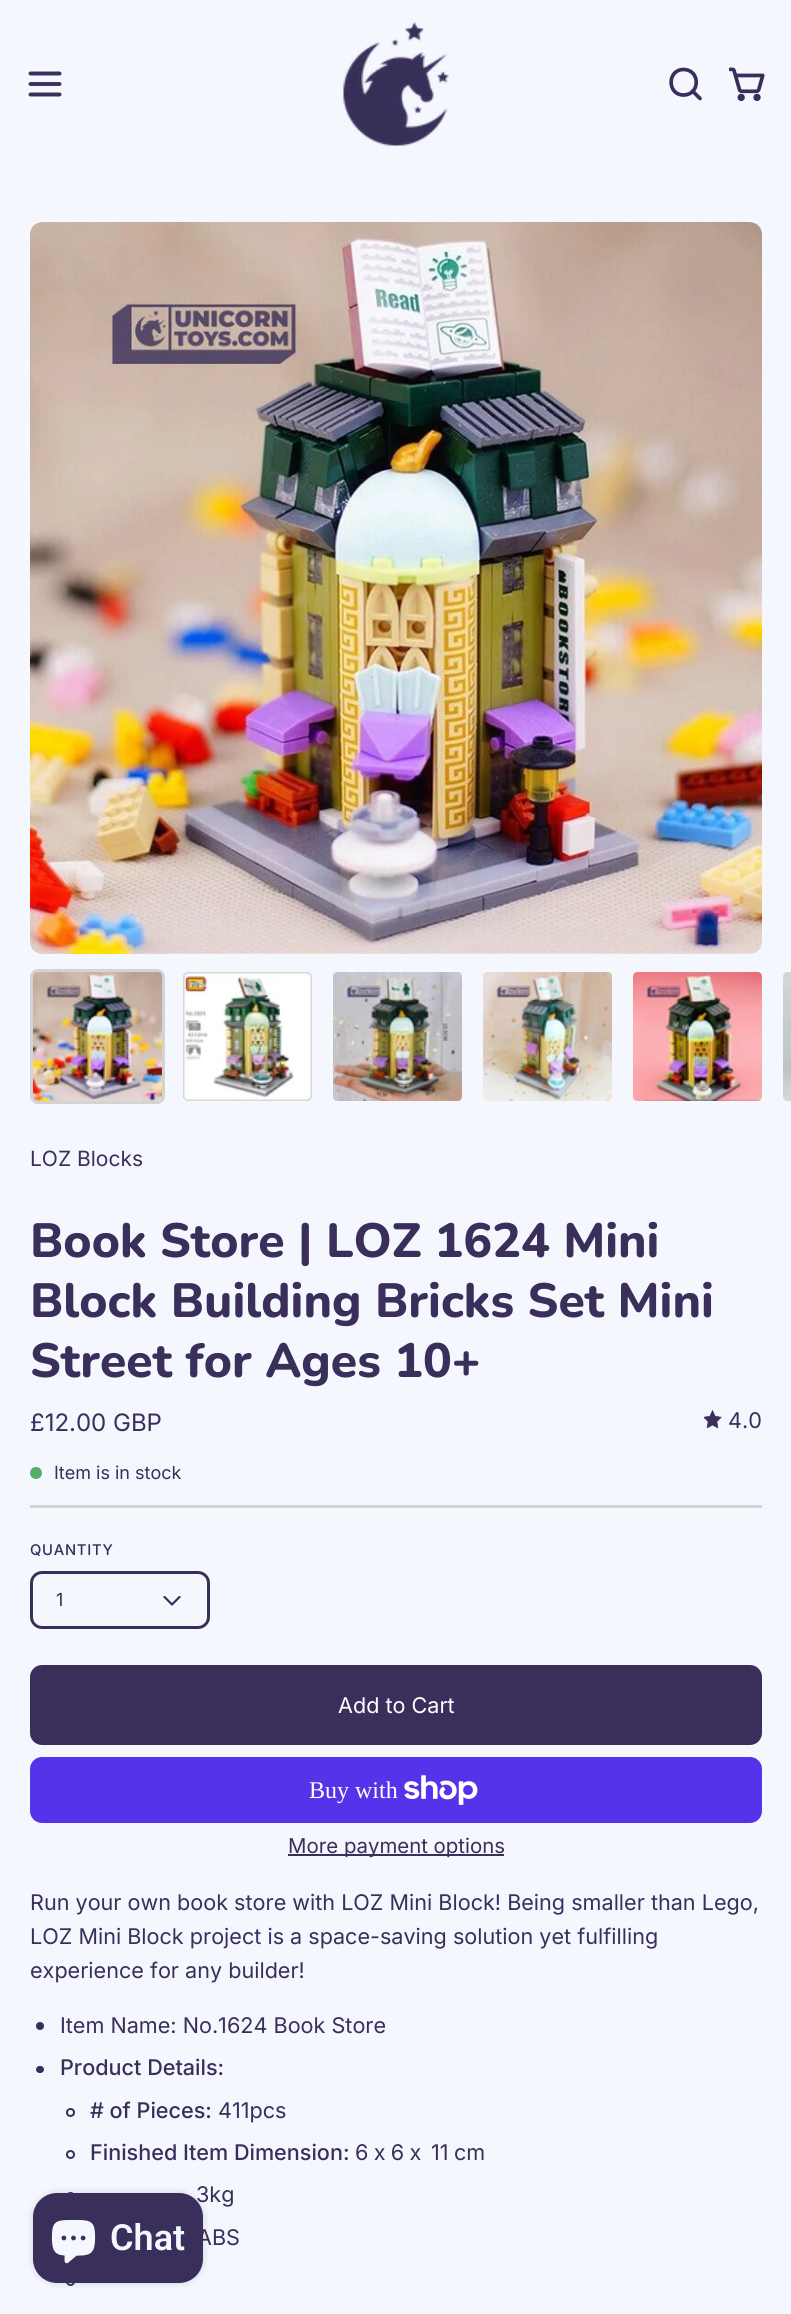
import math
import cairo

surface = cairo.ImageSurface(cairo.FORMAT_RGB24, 791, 2314)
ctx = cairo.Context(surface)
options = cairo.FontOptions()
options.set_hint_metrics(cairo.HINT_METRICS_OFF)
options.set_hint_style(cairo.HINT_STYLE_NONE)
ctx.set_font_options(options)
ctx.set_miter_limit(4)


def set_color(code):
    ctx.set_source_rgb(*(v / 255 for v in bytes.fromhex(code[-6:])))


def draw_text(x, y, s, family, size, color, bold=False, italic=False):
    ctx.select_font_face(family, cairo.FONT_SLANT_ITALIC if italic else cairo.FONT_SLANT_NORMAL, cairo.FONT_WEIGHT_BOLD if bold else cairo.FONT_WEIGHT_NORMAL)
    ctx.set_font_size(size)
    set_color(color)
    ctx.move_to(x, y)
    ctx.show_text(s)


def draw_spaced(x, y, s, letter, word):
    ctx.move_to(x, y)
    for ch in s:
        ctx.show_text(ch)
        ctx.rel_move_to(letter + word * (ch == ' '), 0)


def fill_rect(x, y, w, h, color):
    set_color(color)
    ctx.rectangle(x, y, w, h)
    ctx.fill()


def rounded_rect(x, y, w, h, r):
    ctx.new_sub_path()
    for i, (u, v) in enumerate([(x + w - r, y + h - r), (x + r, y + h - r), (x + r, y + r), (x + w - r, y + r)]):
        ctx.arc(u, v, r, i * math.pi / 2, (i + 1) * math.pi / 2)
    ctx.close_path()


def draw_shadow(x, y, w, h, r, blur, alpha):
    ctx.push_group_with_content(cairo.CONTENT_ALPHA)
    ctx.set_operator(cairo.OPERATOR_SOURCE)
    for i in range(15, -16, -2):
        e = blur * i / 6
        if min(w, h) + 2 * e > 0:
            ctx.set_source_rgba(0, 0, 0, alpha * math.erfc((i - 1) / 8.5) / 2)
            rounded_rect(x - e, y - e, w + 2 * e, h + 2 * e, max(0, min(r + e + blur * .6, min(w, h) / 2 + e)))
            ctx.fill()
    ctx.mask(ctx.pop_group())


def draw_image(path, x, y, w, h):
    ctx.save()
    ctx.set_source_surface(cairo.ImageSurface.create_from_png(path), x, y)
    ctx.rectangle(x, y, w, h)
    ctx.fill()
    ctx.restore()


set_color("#f5f7ff")
ctx.paint()
ctx.new_path()
ctx.move_to(30.5, 84)
ctx.line_to(59.5, 84)
ctx.move_to(30.5, 73.5)
ctx.line_to(59.5, 73.5)
ctx.move_to(30.5, 94.5)
ctx.line_to(59.5, 94.5)
set_color("#392f5a")
ctx.set_line_width(3.9)
ctx.set_line_cap(cairo.LINE_CAP_ROUND)
ctx.set_line_join(cairo.LINE_JOIN_ROUND)
ctx.stroke()
draw_image("assets/img1.png", 343, 22, 106, 124)
ctx.new_path()
ctx.move_to(683.5, 95)
ctx.curve_to(700.5, 95, 700.5, 69.5, 683.5, 69.5)
ctx.curve_to(667, 69.5, 667, 95, 683.5, 95)
ctx.close_path()
ctx.move_to(692.5, 91)
ctx.line_to(700, 98.5)
ctx.set_line_width(3.7)
ctx.stroke()
draw_image("assets/img2.png", 729, 67, 36, 35)
draw_image("assets/img3.png", 30, 222, 732, 732)
rounded_rect(31.5, 970.5, 132, 132, 6.5)
set_color("#d3d3d3")
ctx.set_line_width(3)
ctx.set_line_cap(cairo.LINE_CAP_BUTT)
ctx.set_line_join(cairo.LINE_JOIN_MITER)
ctx.stroke()
draw_image("assets/img4.png", 33, 972, 129, 129)
draw_image("assets/img5.png", 183, 972, 129, 129)
draw_image("assets/img6.png", 333, 972, 129, 129)
draw_image("assets/img7.png", 483, 972, 129, 129)
draw_image("assets/img8.png", 633, 972, 129, 129)
draw_image("assets/img9.png", 783, 972, 8, 129)
draw_text(30, 1166, "LOZ Blocks", "Inter", 21, "#392f5a")
draw_text(30, 1257, "Book Store | LOZ 1624 Mini", "Nunito ExtraBold", 48, "#392f5a")
draw_text(30, 1317, "Block Building Bricks Set Mini", "Nunito ExtraBold", 48, "#392f5a")
draw_text(30, 1377, "Street for Ages 10+", "Nunito ExtraBold", 48, "#392f5a")
draw_text(30, 1431, "£12.00 GBP", "Inter", 24, "#392f5a")
draw_image("assets/img10.png", 704, 1410, 18, 18)
draw_text(728, 1428, "4.0", "Inter", 21.6, "#392f5a")
set_color("#56ad6a")
ctx.new_path()
ctx.arc(36, 1473, 6, 0, 2 * math.pi)
ctx.fill()
draw_text(54, 1479, "Item is in stock", "Inter", 18, "#392f5a")
fill_rect(30, 1505, 732, 3, "#d3d3d3")
ctx.select_font_face("Inter Medium")
ctx.set_font_size(14.75)
set_color("#392f5a")
draw_spaced(30, 1555, "QUANTITY", 0.75, 0)
rounded_rect(31.5, 1572.5, 177, 55, 10.5)
ctx.stroke()
draw_text(56, 1606, "1", "Inter", 18, "#392f5a")
ctx.new_path()
ctx.move_to(179.5, 1597)
ctx.line_to(172, 1604.5)
ctx.line_to(164.5, 1597)
ctx.set_line_width(2.2)
ctx.set_line_cap(cairo.LINE_CAP_ROUND)
ctx.set_line_join(cairo.LINE_JOIN_ROUND)
ctx.stroke()
rounded_rect(30, 1665, 732, 80, 12)
ctx.fill()
draw_text(338, 1713, "Add to Cart", "Inter", 21.6, "#ffffff")
set_color("#5433eb")
rounded_rect(30, 1757, 732, 66, 12)
ctx.fill()
draw_text(309, 1798, "Buy with", "Liberation Serif", 24, "#ffffff")
draw_image("assets/img11.png", 404, 1775, 74, 30)
fill_rect(288, 1854, 216, 2, "#392f5a")
draw_text(288, 1853, "More payment options", "Inter", 20.4, "#392f5a")
draw_text(30, 1910, "Run your own book store with LOZ Mini Block! Being smaller than Lego,", "Inter", 21.6, "#392f5a")
draw_text(30, 1944, "LOZ Mini Block project is a space-saving solution yet fulfilling", "Inter", 21.6, "#392f5a")
draw_text(30, 1978, "experience for any builder!", "Inter", 21.6, "#392f5a")
ctx.new_path()
ctx.arc(40, 2026, 4, 0, 2 * math.pi)
ctx.fill()
draw_text(60, 2033, "Item Name: No.1624 Book Store", "Inter", 21.6, "#392f5a")
rounded_rect(36, 2066, 8, 7, 3.5)
ctx.fill()
draw_text(60, 2075, "Product Details:", "Inter Medium", 21.6, "#392f5a")
ctx.new_path()
ctx.arc(70.5, 2112.5, 3.5, 0, 2 * math.pi)
ctx.set_line_width(2)
ctx.set_line_cap(cairo.LINE_CAP_BUTT)
ctx.set_line_join(cairo.LINE_JOIN_MITER)
ctx.stroke()
draw_text(90, 2118, "# of Pieces:", "Inter Medium", 21.6, "#392f5a")
draw_text(218, 2118, "411pcs", "Inter", 21.6, "#392f5a")
ctx.new_path()
ctx.arc(70.5, 2154.5, 3.5, 0, 2 * math.pi)
ctx.stroke()
draw_text(90, 2160, "Finished Item Dimension:", "Inter Medium", 21.6, "#392f5a")
ctx.select_font_face("Inter")
draw_spaced(355, 2160, "6 x 6 x", 0, -0.75)
draw_spaced(431, 2160, "11 cm", 0, -0.75)
ctx.new_path()
ctx.arc(70.5, 2196.5, 3.5, 0, 2 * math.pi)
ctx.stroke()
draw_text(196, 2202, "3kg", "Inter", 21.6, "#392f5a")
draw_text(197, 2245, "ABS", "Inter", 21.6, "#392f5a")
ctx.new_path()
ctx.arc(70.5, 2281.5, 3.5, 0, 2 * math.pi)
ctx.stroke()
set_color("#000000")
draw_shadow(33, 2193, 170, 90, 24, 4, 0.15)
set_color("#392f5a")
rounded_rect(33, 2193, 170, 90, 24)
ctx.fill()
draw_image("assets/img12.png", 51, 2220, 45, 44)
draw_text(110, 2250, "Chat", "Roboto SemiBold", 36, "#f5f7ff")
surface.write_to_png("output.png")
